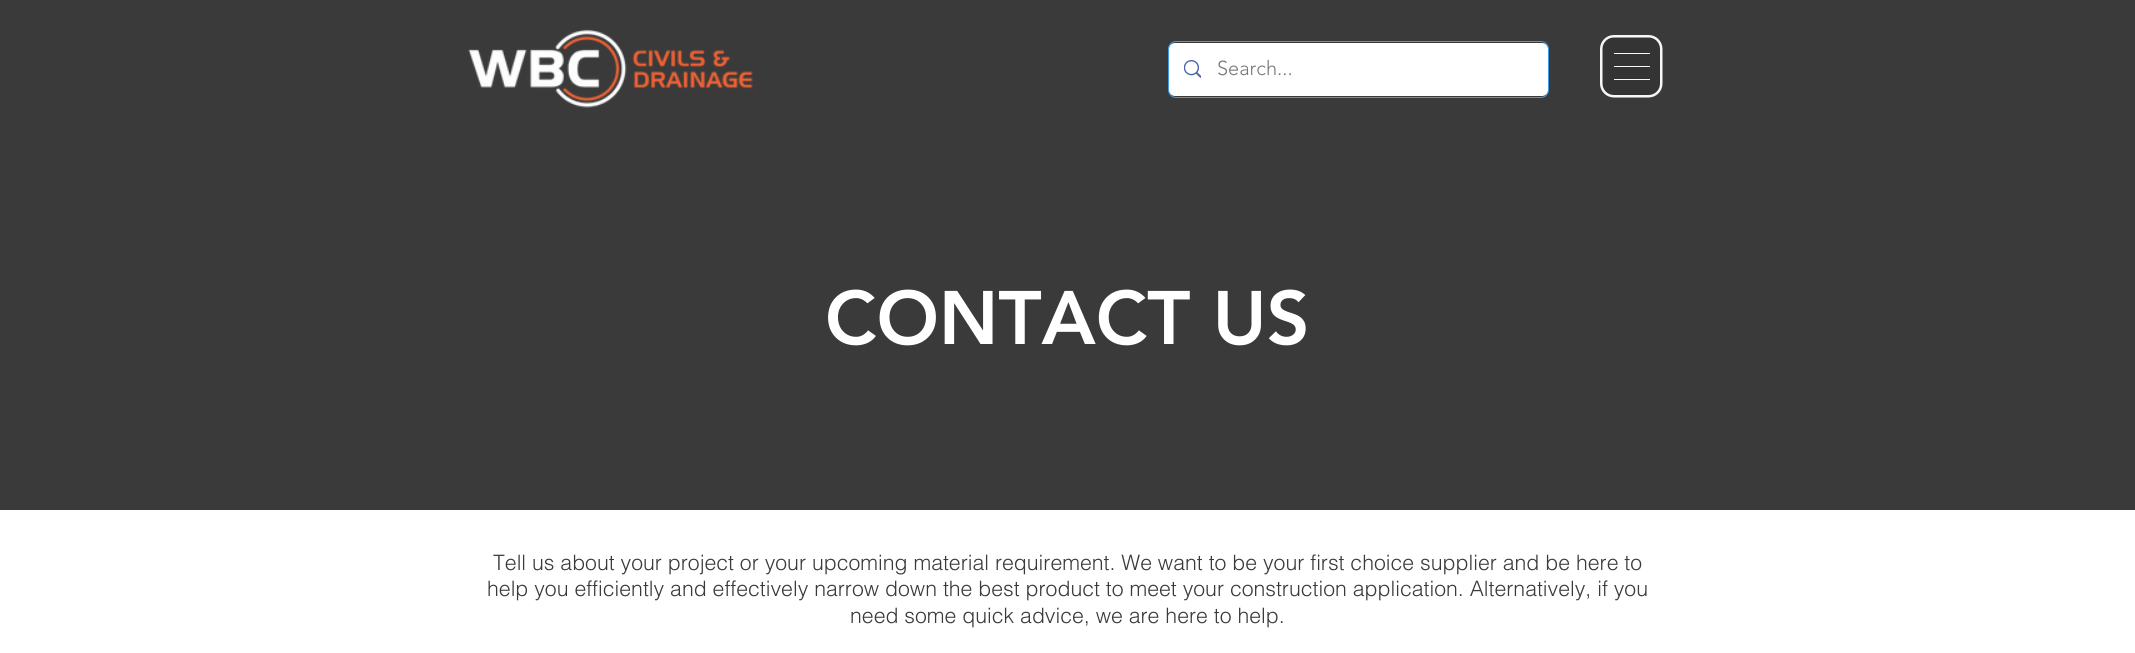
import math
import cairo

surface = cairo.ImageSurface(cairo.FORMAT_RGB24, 2135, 653)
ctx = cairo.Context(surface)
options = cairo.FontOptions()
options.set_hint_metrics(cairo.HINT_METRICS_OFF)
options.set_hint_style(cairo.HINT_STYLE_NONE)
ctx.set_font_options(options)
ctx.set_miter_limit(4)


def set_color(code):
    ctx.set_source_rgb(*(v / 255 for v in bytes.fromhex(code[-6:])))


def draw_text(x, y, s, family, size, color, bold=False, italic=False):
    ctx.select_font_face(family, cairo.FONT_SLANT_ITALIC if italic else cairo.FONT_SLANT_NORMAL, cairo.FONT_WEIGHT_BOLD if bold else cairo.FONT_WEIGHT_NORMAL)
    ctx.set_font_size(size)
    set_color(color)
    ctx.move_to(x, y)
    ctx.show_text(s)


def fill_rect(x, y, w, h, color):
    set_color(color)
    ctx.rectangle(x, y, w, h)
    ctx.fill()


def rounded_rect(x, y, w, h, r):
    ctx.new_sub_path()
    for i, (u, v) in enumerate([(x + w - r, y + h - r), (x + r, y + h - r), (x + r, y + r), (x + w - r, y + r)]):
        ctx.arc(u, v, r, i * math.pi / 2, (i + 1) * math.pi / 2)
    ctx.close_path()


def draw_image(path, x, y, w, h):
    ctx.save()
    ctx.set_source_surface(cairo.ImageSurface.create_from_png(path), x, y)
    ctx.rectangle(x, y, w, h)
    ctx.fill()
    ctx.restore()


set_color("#ffffff")
ctx.paint()
fill_rect(0, 0, 2135, 510, "#3b3a3a")
draw_image("assets/img1.png", 468, 29, 285, 79)
draw_image("assets/img2.png", 1600, 35, 63, 63)
rounded_rect(1168.5, 41.5, 380, 56, 7.5)
set_color("#3d9be9")
ctx.set_line_width(1)
ctx.stroke()
set_color("#ffffff")
rounded_rect(1169, 43, 379, 53, 6)
ctx.fill()
draw_image("assets/img3.png", 1184, 60, 17, 18)
draw_text(1217, 75, "Search...", "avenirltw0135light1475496 Light", 20, "#787878")
fill_rect(1614, 53, 36, 1, "#f7f7f7")
fill_rect(1614, 66, 36, 1, "#f7f7f7")
fill_rect(1614, 79, 36, 1, "#f7f7f7")
draw_text(825, 344, "CONTACT US", "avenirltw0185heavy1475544 Black", 75, "#ffffff")
draw_text(493, 570, "Tell us about your project or your upcoming material requirement. We want to be your first choice supplier and be here to", "helvetica Light", 21.25, "#3b3a3a")
draw_text(487, 596, "help you efficiently and effectively narrow down the best product to meet your construction application. Alternatively, if you", "helvetica Light", 21.25, "#3b3a3a")
draw_text(850, 623, "need some quick advice, we are here to help.", "helvetica Light", 21.25, "#3b3a3a")
surface.write_to_png("output.png")
